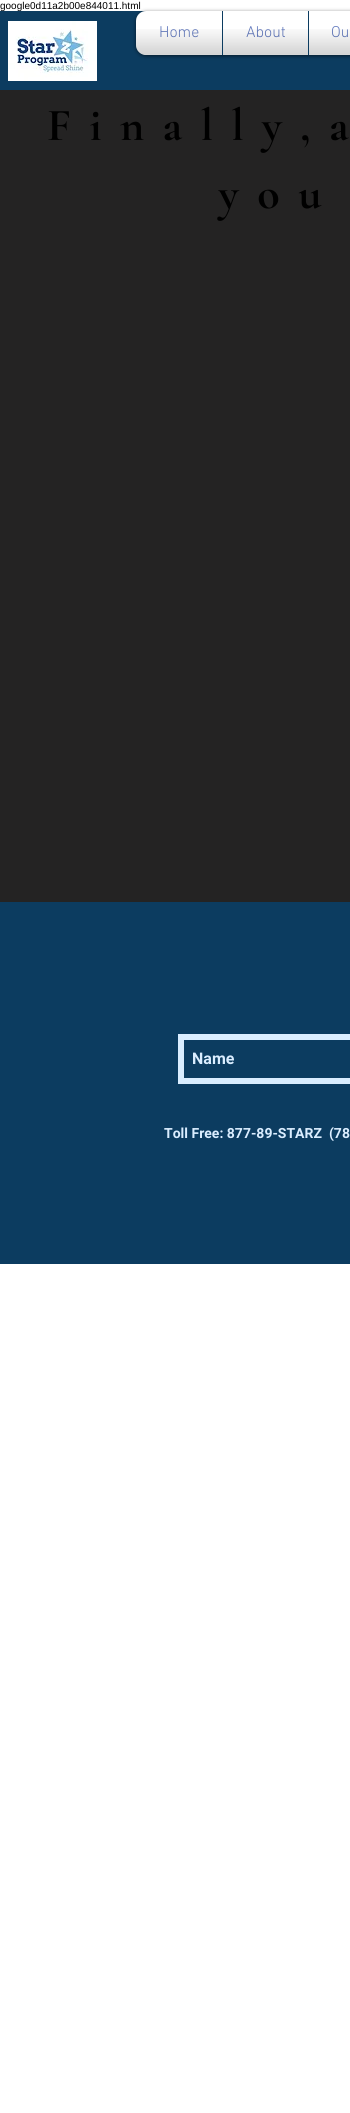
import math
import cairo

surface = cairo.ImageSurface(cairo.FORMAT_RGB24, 350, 2113)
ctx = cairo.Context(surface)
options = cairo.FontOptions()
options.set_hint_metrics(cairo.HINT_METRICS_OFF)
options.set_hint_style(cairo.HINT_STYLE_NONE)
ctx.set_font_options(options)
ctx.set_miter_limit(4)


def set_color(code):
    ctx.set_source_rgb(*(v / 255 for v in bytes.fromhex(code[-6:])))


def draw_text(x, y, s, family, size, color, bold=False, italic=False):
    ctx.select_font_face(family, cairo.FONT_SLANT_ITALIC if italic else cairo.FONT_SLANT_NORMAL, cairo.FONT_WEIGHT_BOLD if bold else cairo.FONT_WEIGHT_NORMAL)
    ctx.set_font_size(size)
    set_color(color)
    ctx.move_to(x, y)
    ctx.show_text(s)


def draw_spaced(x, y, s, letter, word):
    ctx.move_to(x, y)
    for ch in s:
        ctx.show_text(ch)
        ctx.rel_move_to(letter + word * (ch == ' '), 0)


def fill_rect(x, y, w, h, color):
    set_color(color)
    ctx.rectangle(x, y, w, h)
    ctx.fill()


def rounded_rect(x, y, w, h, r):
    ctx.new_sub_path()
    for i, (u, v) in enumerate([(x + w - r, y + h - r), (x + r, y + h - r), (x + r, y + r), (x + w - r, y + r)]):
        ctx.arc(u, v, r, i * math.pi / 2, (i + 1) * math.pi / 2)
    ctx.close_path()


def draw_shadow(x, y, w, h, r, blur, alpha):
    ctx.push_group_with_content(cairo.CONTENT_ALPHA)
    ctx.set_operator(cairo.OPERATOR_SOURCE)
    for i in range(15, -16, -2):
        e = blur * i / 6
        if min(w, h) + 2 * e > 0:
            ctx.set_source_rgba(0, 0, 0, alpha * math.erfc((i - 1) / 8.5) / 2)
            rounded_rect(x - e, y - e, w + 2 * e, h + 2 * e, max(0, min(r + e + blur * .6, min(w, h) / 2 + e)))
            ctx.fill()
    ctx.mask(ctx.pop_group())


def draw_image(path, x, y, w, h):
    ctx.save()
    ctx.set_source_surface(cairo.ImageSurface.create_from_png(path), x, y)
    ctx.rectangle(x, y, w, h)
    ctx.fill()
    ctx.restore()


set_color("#ffffff")
ctx.paint()
draw_text(0, 9, "google0d11a2b00e844011.html", "Liberation Sans", 10, "#000000")
fill_rect(0, 11, 350, 79, "#0c3c60")
draw_image("assets/img1.png", 8, 21, 89, 60)
set_color("#000000")
draw_shadow(136, 12, 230, 44, 10, 2, 0.6)
draw_image("assets/img2.png", 136, 11, 9, 8)
draw_image("assets/img3.png", 136, 45, 10, 10)
set_color("#ffffff")
ctx.new_path()
ctx.move_to(146, 11)
ctx.line_to(222, 11)
ctx.line_to(222, 55)
ctx.line_to(146, 55)
ctx.curve_to(140.5, 55, 136, 50.5, 136, 45)
ctx.line_to(136, 21)
ctx.curve_to(136, 15.5, 140.5, 11, 146, 11)
ctx.close_path()
ctx.fill()
draw_text(159, 37, "Home", "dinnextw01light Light", 16, "#566fb8")
draw_image("assets/img4.png", 160, 26, 38, 11)
draw_image("assets/img5.png", 136, 29, 86, 26)
fill_rect(223, 11, 85, 44, "#ffffff")
fill_rect(222, 11, 1, 44, "#0c3c60")
draw_text(246, 37, "About", "dinnextw01light Light", 16, "#566fb8")
draw_image("assets/img6.png", 246, 26, 39, 11)
draw_image("assets/img7.png", 223, 29, 85, 26)
fill_rect(309, 11, 41, 44, "#ffffff")
fill_rect(308, 11, 1, 44, "#0c3c60")
draw_text(331, 37, "Ou", "dinnextw01light Light", 16, "#566fb8")
draw_image("assets/img8.png", 332, 26, 16, 11)
draw_image("assets/img9.png", 309, 29, 41, 26)
fill_rect(0, 90, 350, 812, "#242323")
ctx.select_font_face("Cormorant Garamond", cairo.FONT_SLANT_NORMAL, cairo.FONT_WEIGHT_BOLD)
ctx.set_font_size(46)
set_color("#000000")
draw_spaced(47, 140, "Finally,a", 18.5, 0)
draw_spaced(219, 208, "you", 18.5, 0)
fill_rect(0, 902, 350, 362, "#0c3c60")
ctx.rectangle(181, 1037, 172, 44)
set_color("#daedff")
ctx.set_line_width(6)
ctx.stroke()
draw_text(192, 1064, "Name", "Roboto", 16, "#daedff", bold=True)
draw_text(164, 1138, "Toll Free: 877-89-STARZ  (78", "Roboto", 14, "#daedff", bold=True)
surface.write_to_png("output.png")
